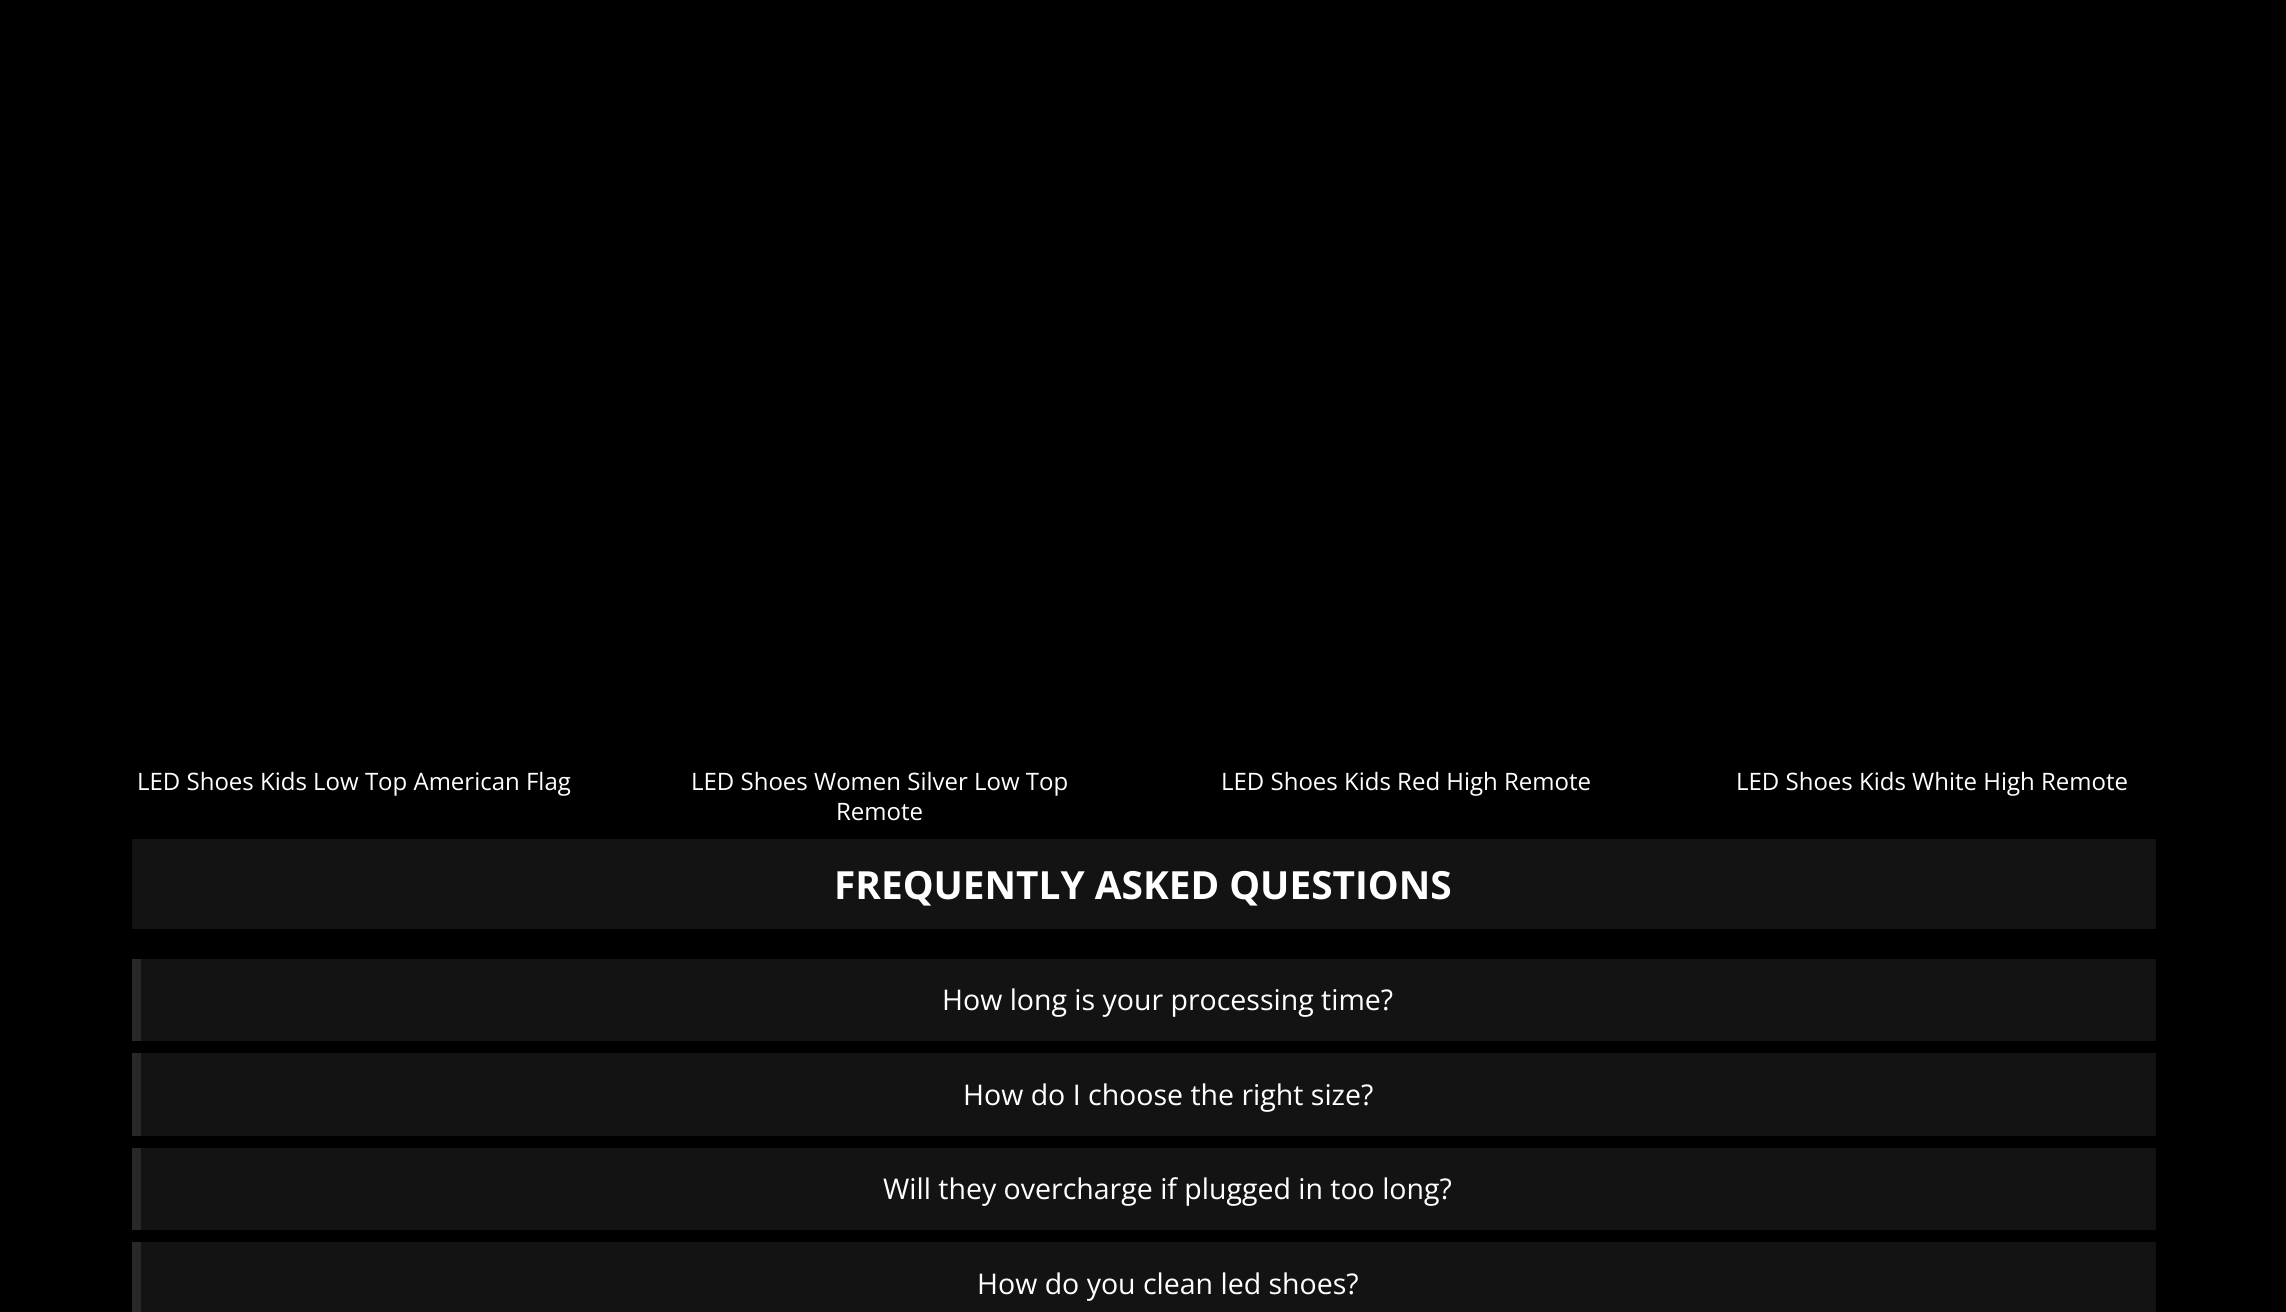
import math
import cairo

surface = cairo.ImageSurface(cairo.FORMAT_RGB24, 2286, 1312)
ctx = cairo.Context(surface)
options = cairo.FontOptions()
options.set_hint_metrics(cairo.HINT_METRICS_OFF)
options.set_hint_style(cairo.HINT_STYLE_NONE)
ctx.set_font_options(options)
ctx.set_miter_limit(4)


def set_color(code):
    ctx.set_source_rgb(*(v / 255 for v in bytes.fromhex(code[-6:])))


def draw_text(x, y, s, family, size, color, bold=False, italic=False):
    ctx.select_font_face(family, cairo.FONT_SLANT_ITALIC if italic else cairo.FONT_SLANT_NORMAL, cairo.FONT_WEIGHT_BOLD if bold else cairo.FONT_WEIGHT_NORMAL)
    ctx.set_font_size(size)
    set_color(color)
    ctx.move_to(x, y)
    ctx.show_text(s)


def fill_rect(x, y, w, h, color):
    set_color(color)
    ctx.rectangle(x, y, w, h)
    ctx.fill()


set_color("#000000")
ctx.paint()
draw_text(137, 790, "LED Shoes Kids Low Top American Flag", "Open Sans", 24, "#ffffff")
draw_text(691, 790, "LED Shoes Women Silver Low Top", "Open Sans", 24, "#ffffff")
draw_text(836, 820, "Remote", "Open Sans", 24, "#ffffff")
draw_text(1221, 790, "LED Shoes Kids Red High Remote", "Open Sans", 24, "#ffffff")
draw_text(1736, 790, "LED Shoes Kids White High Remote", "Open Sans", 24, "#ffffff")
fill_rect(132, 839, 2024, 90, "#131313")
draw_text(834, 899, "FREQUENTLY ASKED QUESTIONS", "Open Sans", 38.8, "#ffffff", bold=True)
fill_rect(141, 959, 2015, 82, "#131313")
fill_rect(132, 959, 9, 82, "#282828")
draw_text(942, 1010, "How long is your processing time?", "Open Sans", 28.5, "#ffffff")
fill_rect(141, 1053, 2015, 83, "#131313")
fill_rect(132, 1053, 9, 83, "#282828")
draw_text(963, 1105, "How do I choose the right size?", "Open Sans", 28.5, "#ffffff")
fill_rect(141, 1148, 2015, 82, "#131313")
fill_rect(132, 1148, 9, 82, "#282828")
draw_text(883, 1199, "Will they overcharge if plugged in too long?", "Open Sans", 28.5, "#ffffff")
fill_rect(141, 1242, 2015, 70, "#131313")
fill_rect(132, 1242, 9, 70, "#282828")
draw_text(977, 1294, "How do you clean led shoes?", "Open Sans", 28.5, "#ffffff")
surface.write_to_png("output.png")
